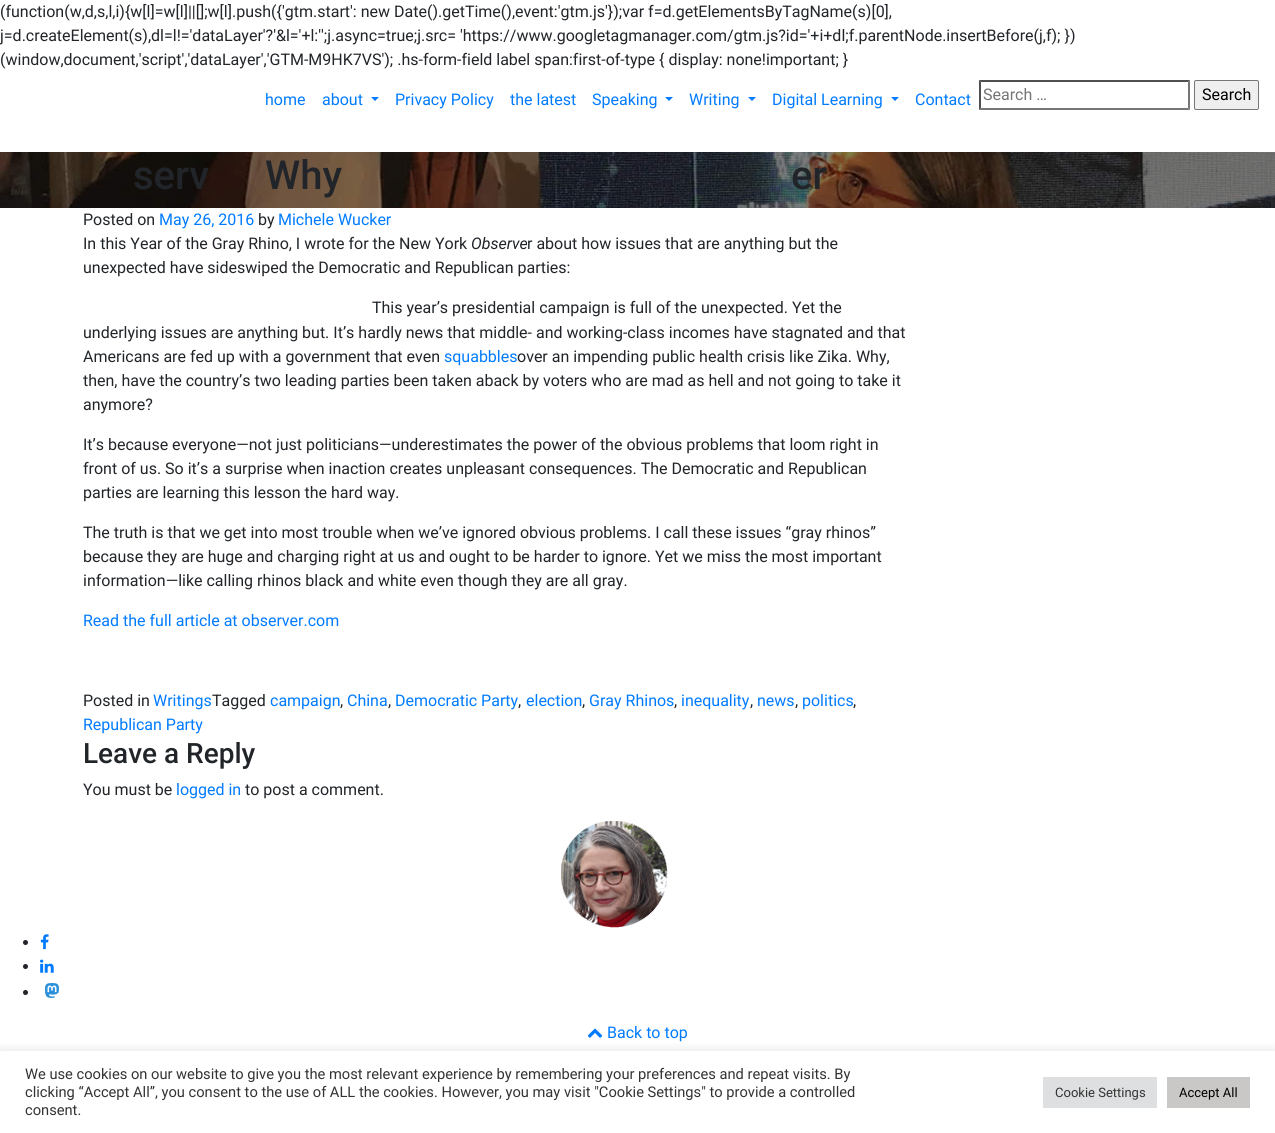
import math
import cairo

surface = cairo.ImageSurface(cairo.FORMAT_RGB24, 1275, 1133)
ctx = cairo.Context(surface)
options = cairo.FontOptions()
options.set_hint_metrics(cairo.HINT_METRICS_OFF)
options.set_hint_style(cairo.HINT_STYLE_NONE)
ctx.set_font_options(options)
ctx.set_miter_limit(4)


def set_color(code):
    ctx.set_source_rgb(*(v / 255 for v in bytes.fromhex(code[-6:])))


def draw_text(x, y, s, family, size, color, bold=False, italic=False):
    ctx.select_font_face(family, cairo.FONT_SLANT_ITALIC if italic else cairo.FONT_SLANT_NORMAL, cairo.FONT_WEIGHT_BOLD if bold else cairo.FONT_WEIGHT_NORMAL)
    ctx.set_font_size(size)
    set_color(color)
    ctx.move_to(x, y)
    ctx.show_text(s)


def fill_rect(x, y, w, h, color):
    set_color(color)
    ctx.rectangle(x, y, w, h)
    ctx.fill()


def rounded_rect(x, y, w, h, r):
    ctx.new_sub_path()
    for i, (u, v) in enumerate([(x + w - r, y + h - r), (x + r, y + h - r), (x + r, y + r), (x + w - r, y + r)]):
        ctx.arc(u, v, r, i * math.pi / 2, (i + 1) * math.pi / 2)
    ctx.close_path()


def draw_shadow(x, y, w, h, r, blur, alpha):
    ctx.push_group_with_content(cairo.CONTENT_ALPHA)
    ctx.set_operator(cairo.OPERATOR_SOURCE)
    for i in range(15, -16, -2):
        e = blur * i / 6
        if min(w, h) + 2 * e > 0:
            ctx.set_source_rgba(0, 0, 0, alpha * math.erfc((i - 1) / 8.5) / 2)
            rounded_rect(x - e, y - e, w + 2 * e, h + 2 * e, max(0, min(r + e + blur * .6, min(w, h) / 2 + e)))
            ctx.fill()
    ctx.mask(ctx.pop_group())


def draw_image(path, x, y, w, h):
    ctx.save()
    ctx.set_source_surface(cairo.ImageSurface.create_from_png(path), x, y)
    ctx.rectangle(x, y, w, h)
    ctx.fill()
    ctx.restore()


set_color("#ffffff")
ctx.paint()
draw_text(0, 17, "(function(w,d,s,l,i){w[l]=w[l]||[];w[l].push({'gtm.start': new Date().getTime(),event:'gtm.js'});var f=d.getElementsByTagName(s)[0],", "Roboto", 16, "#212529")
draw_text(0, 41, "j=d.createElement(s),dl=l!='dataLayer'?'&l='+l:'';j.async=true;j.src= 'https://www.googletagmanager.com/gtm.js?id='+i+dl;f.parentNode.insertBefore(j,f); })", "Roboto", 16, "#212529")
draw_text(0, 65, "(window,document,'script','dataLayer','GTM-M9HK7VS'); .hs-form-field label span:first-of-type { display: none!important; }", "Roboto", 16, "#212529")
draw_text(265, 105, "home", "Roboto", 16, "#007bff")
draw_text(322, 105, "about", "Roboto", 16, "#007bff")
ctx.new_path()
ctx.move_to(371, 97)
ctx.line_to(379, 97)
ctx.line_to(375, 101)
ctx.close_path()
ctx.fill()
draw_text(395, 105, "Privacy Policy", "Roboto", 16, "#007bff")
draw_text(510, 105, "the latest", "Roboto", 16, "#007bff")
draw_text(592, 105, "Speaking", "Roboto", 16, "#007bff")
ctx.new_path()
ctx.move_to(665, 97)
ctx.line_to(673, 97)
ctx.line_to(669, 101)
ctx.close_path()
ctx.fill()
draw_text(689, 105, "Writing", "Roboto", 16, "#007bff")
ctx.new_path()
ctx.move_to(748, 97)
ctx.line_to(756, 97)
ctx.line_to(752, 101)
ctx.close_path()
ctx.fill()
draw_text(772, 105, "Digital Learning", "Roboto", 16, "#007bff")
ctx.new_path()
ctx.move_to(891, 97)
ctx.line_to(899, 97)
ctx.line_to(895, 101)
ctx.close_path()
ctx.fill()
draw_text(915, 105, "Contact", "Roboto", 16, "#007bff")
set_color("#4f4f4f")
ctx.new_path()
ctx.move_to(979, 80)
ctx.line_to(1190, 80)
ctx.line_to(1188, 82)
ctx.line_to(981, 82)
ctx.close_path()
ctx.fill()
set_color("#767676")
ctx.new_path()
ctx.move_to(1190, 80)
ctx.line_to(1190, 110)
ctx.line_to(1188, 108)
ctx.line_to(1188, 82)
ctx.close_path()
ctx.fill()
ctx.new_path()
ctx.move_to(1190, 110)
ctx.line_to(979, 110)
ctx.line_to(981, 108)
ctx.line_to(1188, 108)
ctx.close_path()
ctx.fill()
set_color("#4f4f4f")
ctx.new_path()
ctx.move_to(979, 110)
ctx.line_to(979, 80)
ctx.line_to(981, 82)
ctx.line_to(981, 108)
ctx.close_path()
ctx.fill()
draw_text(983, 100, "Search …", "Roboto", 16, "#757575")
set_color("#efefef")
rounded_rect(1194.5, 80.5, 64, 29, 1.5)
ctx.fill_preserve()
set_color("#767676")
ctx.set_line_width(1)
ctx.stroke()
draw_text(1202, 100, "Search", "Roboto", 16, "#000000")
draw_image("assets/img1.png", 0, 152, 1275, 56)
draw_text(133, 189, "serv", "Roboto Medium", 40, "#212529")
draw_text(265, 189, "Why", "Roboto Medium", 40, "#212529")
draw_text(791, 189, "er", "Roboto Medium", 40, "#212529")
draw_text(83, 225, "Posted on", "Roboto", 16, "#212529")
draw_text(159, 225, "May 26, 2016", "Roboto", 16, "#007bff")
draw_text(258, 225, "by", "Roboto", 16, "#212529")
draw_text(278, 225, "Michele Wucker", "Roboto", 16, "#007bff")
draw_text(83, 249, "In this Year of the Gray Rhino, I wrote for the New York", "Roboto", 16, "#212529")
draw_text(471, 249, "Observe", "Roboto", 16, "#212529", italic=True)
draw_text(527, 249, "r about how issues that are anything but the", "Roboto", 16, "#212529")
draw_text(83, 273, "unexpected have sideswiped the Democratic and Republican parties:", "Roboto", 16, "#212529")
draw_text(372, 313, "This year’s presidential campaign is full of the unexpected. Yet the", "Roboto", 16, "#212529")
draw_text(83, 338, "underlying issues are anything but. It’s hardly news that middle- and working-class incomes have stagnated and that", "Roboto", 16, "#212529")
draw_text(83, 362, "Americans are fed up with a government that even", "Roboto", 16, "#212529")
draw_text(444, 362, "squabbles", "Roboto", 16, "#007bff")
draw_text(517, 362, "over an impending public health crisis like Zika. Why,", "Roboto", 16, "#212529")
draw_text(83, 386, "then, have the country’s two leading parties been taken aback by voters who are mad as hell and not going to take it", "Roboto", 16, "#212529")
draw_text(83, 410, "anymore?", "Roboto", 16, "#212529")
draw_text(83, 450, "It’s because everyone—not just politicians—underestimates the power of the obvious problems that loom right in", "Roboto", 16, "#212529")
draw_text(83, 474, "front of us. So it’s a surprise when inaction creates unpleasant consequences. The Democratic and Republican", "Roboto", 16, "#212529")
draw_text(83, 498, "parties are learning this lesson the hard way.", "Roboto", 16, "#212529")
draw_text(83, 538, "The truth is that we get into most trouble when we’ve ignored obvious problems. I call these issues “gray rhinos”", "Roboto", 16, "#212529")
draw_text(83, 562, "because they are huge and charging right at us and ought to be harder to ignore. Yet we miss the most important", "Roboto", 16, "#212529")
draw_text(83, 586, "information—like calling rhinos black and white even though they are all gray.", "Roboto", 16, "#212529")
draw_text(83, 626, "Read the full article at observer.com", "Roboto", 16, "#007bff")
draw_text(83, 706, "Posted in", "Roboto", 16, "#212529")
draw_text(153, 706, "Writings", "Roboto", 16, "#007bff")
draw_text(212, 706, "Tagged", "Roboto", 16, "#212529")
draw_text(270, 706, "campaign", "Roboto", 16, "#007bff")
draw_text(340, 706, ",", "Roboto", 16, "#212529")
draw_text(347, 706, "China", "Roboto", 16, "#007bff")
draw_text(388, 706, ",", "Roboto", 16, "#212529")
draw_text(395, 706, "Democratic Party", "Roboto", 16, "#007bff")
draw_text(518, 706, ",", "Roboto", 16, "#212529")
draw_text(526, 706, "election", "Roboto", 16, "#007bff")
draw_text(582, 706, ",", "Roboto", 16, "#212529")
draw_text(589, 706, "Gray Rhinos", "Roboto", 16, "#007bff")
draw_text(674, 706, ",", "Roboto", 16, "#212529")
draw_text(681, 706, "inequality", "Roboto", 16, "#007bff")
draw_text(750, 706, ",", "Roboto", 16, "#212529")
draw_text(757, 706, "news", "Roboto", 16, "#007bff")
draw_text(795, 706, ",", "Roboto", 16, "#212529")
draw_text(802, 706, "politics", "Roboto", 16, "#007bff")
draw_text(853, 706, ",", "Roboto", 16, "#212529")
draw_text(83, 730, "Republican Party", "Roboto", 16, "#007bff")
draw_text(83, 763, "Leave a Reply", "Roboto Medium", 28, "#212529")
draw_text(83, 795, "You must be", "Roboto", 16, "#212529")
draw_text(176, 795, "logged in", "Roboto", 16, "#007bff")
draw_text(245, 795, "to post a comment.", "Roboto", 16, "#212529")
draw_image("assets/img2.png", 561, 821, 107, 107)
ctx.arc(25.5, 942.5, 2.5, 0, 2 * math.pi)
ctx.fill()
draw_image("assets/img3.png", 40, 934, 9, 16)
ctx.arc(25.5, 966.5, 2.5, 0, 2 * math.pi)
ctx.fill()
draw_image("assets/img4.png", 40, 959, 14, 14)
ctx.arc(25.5, 992.5, 2.5, 0, 2 * math.pi)
ctx.fill()
draw_image("assets/img5.png", 45, 983, 14, 15)
draw_image("assets/img6.png", 587, 1028, 16, 10)
draw_text(607, 1038, "Back to top", "Roboto", 16, "#007bff")
ctx.save()
ctx.rectangle(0, 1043, 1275, 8)
ctx.clip()
set_color("#acabab")
draw_shadow(0, 1050, 1275, 82, 0, 5, 0.3)
ctx.restore()
draw_text(25, 1079, "We use cookies on our website to give you the most relevant experience by remembering your preferences and repeat visits. By", "Roboto", 14.67, "#333333")
draw_text(25, 1097, "clicking “Accept All”, you consent to the use of ALL the cookies. However, you may visit \"Cookie Settings\" to provide a controlled", "Roboto", 14.67, "#333333")
draw_text(25, 1115, "consent.", "Roboto", 14.67, "#333333")
fill_rect(1043, 1077, 114, 31, "#dedfe0")
draw_text(1055, 1097, "Cookie Settings", "Roboto", 13, "#333333")
fill_rect(1167, 1077, 83, 31, "#c9c8c7")
draw_text(1179, 1097, "Accept All", "Roboto", 13, "#000000")
surface.write_to_png("output.png")
